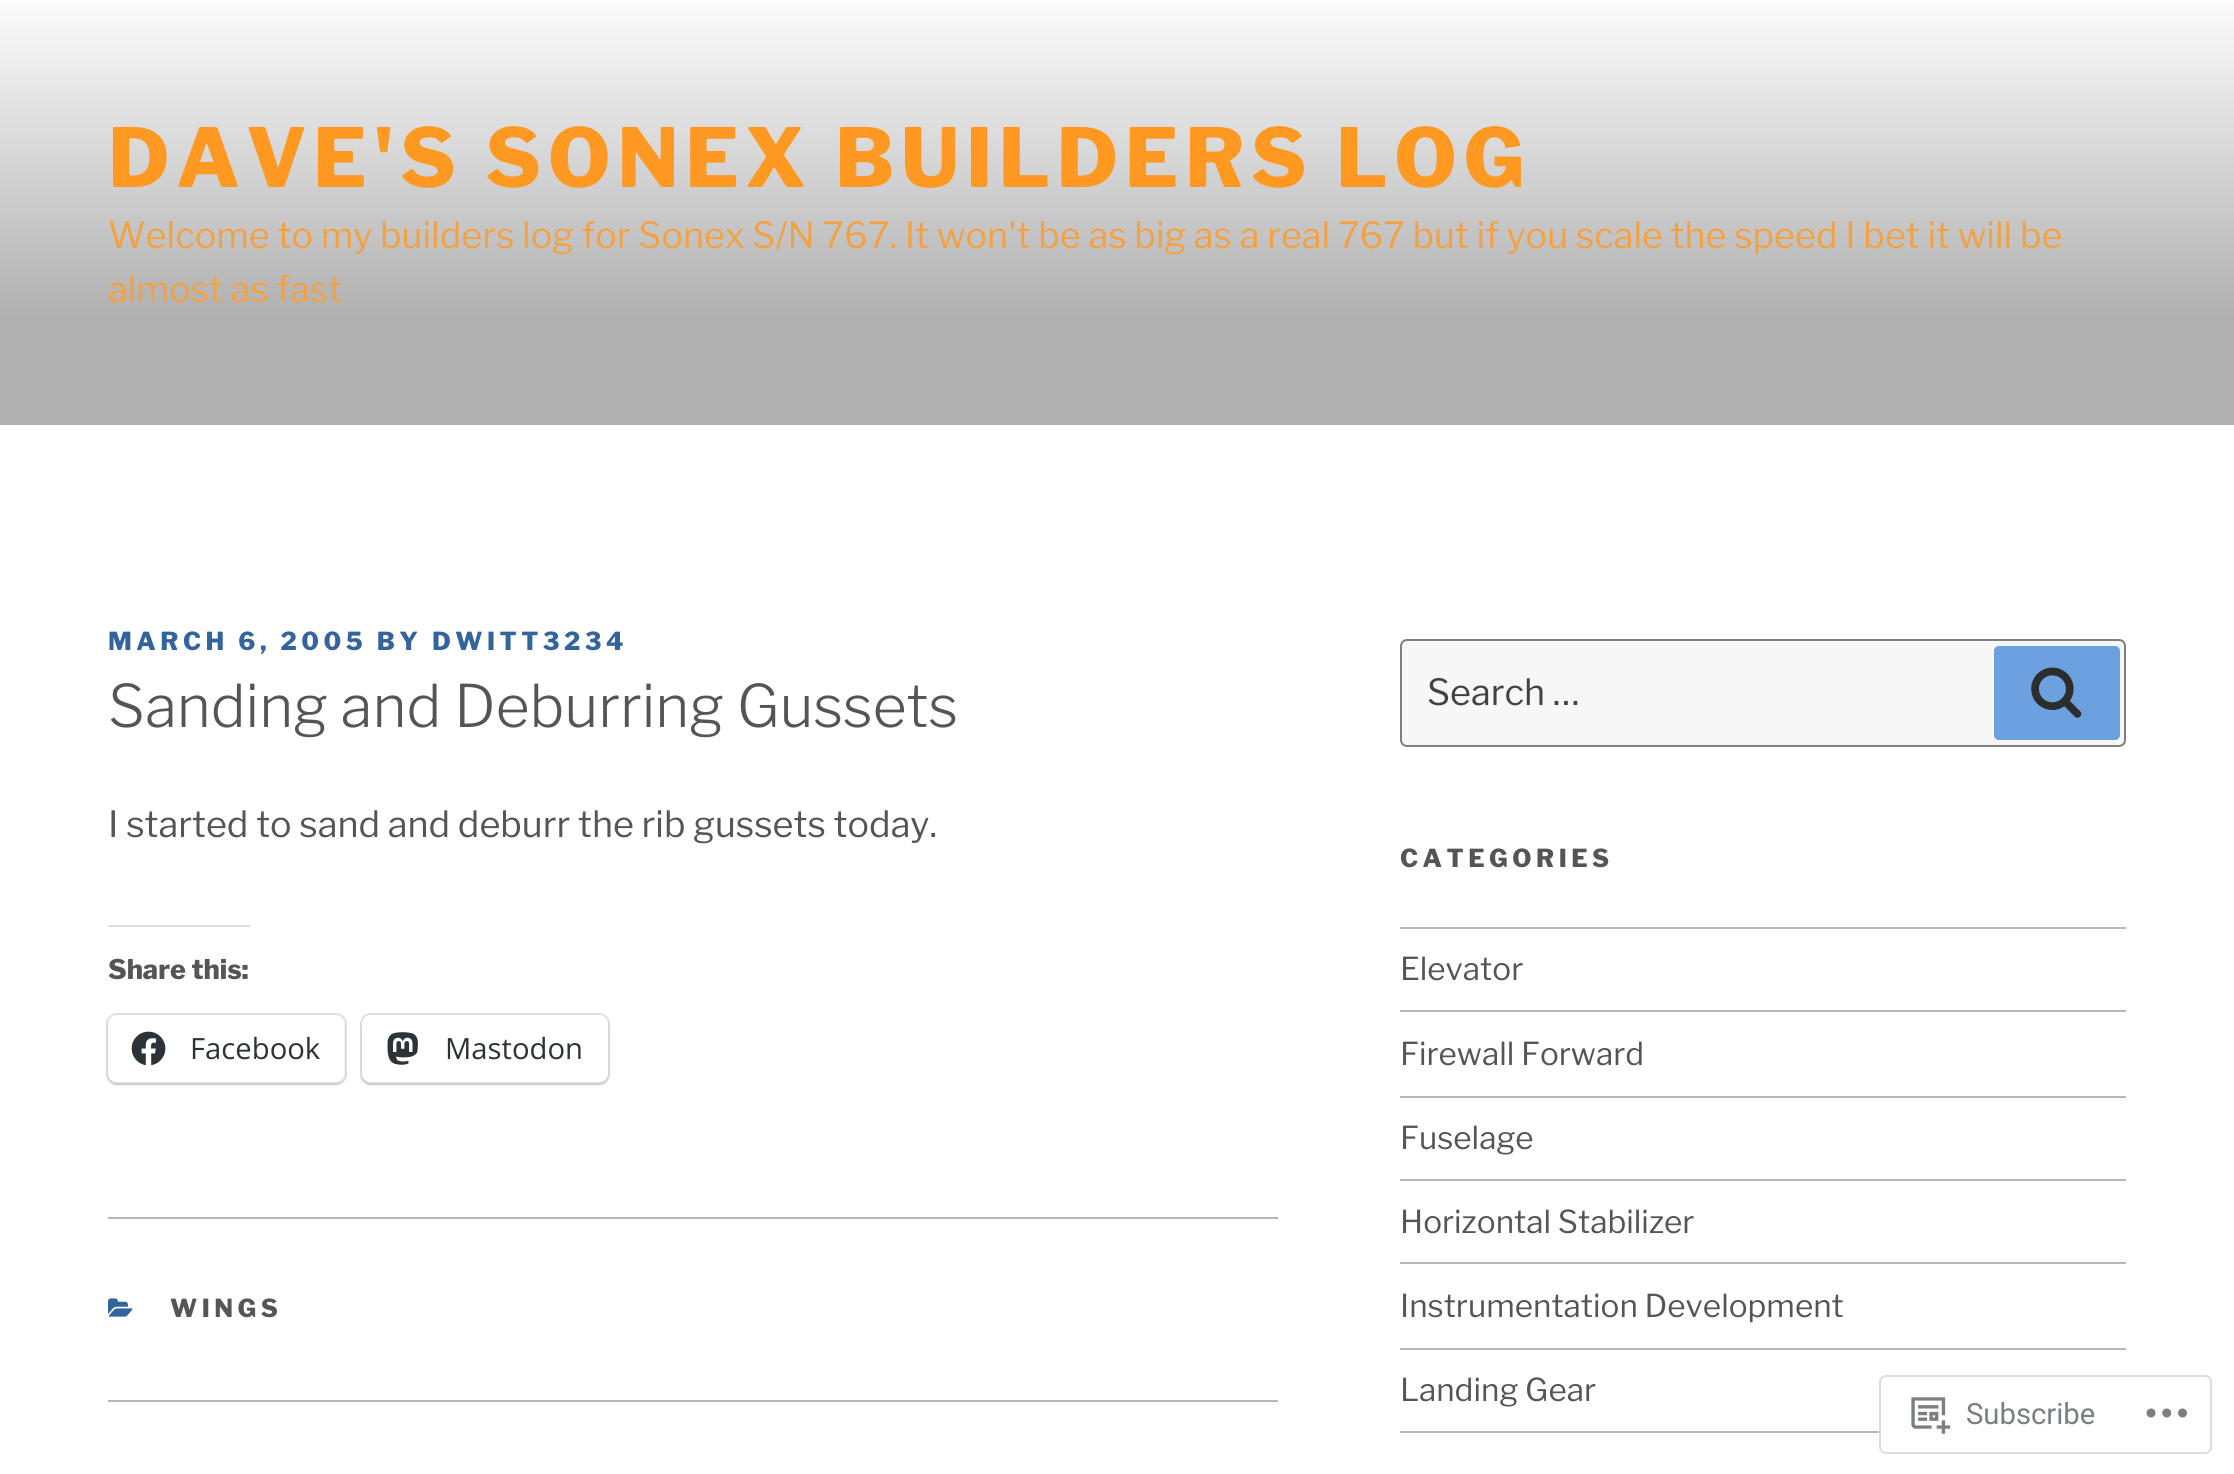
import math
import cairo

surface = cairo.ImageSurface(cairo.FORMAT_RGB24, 2234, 1474)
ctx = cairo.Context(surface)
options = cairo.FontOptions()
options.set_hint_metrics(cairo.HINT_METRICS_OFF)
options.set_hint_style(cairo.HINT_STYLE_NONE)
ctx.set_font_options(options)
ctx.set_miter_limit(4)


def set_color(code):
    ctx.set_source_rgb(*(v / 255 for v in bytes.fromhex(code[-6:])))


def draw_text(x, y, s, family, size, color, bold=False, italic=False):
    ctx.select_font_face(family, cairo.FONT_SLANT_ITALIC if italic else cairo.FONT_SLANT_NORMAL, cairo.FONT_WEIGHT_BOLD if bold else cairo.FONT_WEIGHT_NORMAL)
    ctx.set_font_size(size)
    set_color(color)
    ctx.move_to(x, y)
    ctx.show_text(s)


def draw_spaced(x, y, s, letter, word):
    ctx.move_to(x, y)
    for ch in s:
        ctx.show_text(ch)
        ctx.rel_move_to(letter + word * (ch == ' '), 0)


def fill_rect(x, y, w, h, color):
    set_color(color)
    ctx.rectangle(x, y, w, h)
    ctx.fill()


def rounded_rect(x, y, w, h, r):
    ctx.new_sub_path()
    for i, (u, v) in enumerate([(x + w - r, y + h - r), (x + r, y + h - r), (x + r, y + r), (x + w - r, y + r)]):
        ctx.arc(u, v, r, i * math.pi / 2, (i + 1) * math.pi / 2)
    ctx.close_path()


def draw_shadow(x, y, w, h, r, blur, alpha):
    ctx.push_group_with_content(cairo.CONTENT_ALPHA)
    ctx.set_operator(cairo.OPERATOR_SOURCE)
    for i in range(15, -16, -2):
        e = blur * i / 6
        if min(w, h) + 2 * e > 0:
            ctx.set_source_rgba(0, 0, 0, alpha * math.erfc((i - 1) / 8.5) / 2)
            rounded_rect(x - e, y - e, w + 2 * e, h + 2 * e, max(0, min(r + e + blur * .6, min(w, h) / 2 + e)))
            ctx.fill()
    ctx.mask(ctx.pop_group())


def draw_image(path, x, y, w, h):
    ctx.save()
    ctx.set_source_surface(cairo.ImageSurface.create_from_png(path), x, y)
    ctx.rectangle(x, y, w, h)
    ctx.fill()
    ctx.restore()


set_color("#ffffff")
ctx.paint()
gradient = cairo.LinearGradient(1117, 0, 1117, 425)
gradient.add_color_stop_rgba(0, 0.988, 0.988, 0.988, 1)
gradient.add_color_stop_rgba(0.75, 0.69, 0.69, 0.69, 1)
gradient.add_color_stop_rgba(1, 0.69, 0.69, 0.69, 1)
ctx.set_source(gradient)
ctx.rectangle(0, 0, 2234, 425)
ctx.fill()
ctx.select_font_face("Libre Franklin Thin")
ctx.set_font_size(81)
set_color("#ff9922")
draw_spaced(108, 187, "DAVE'S SONEX BUILDERS LOG", 6.5, 0)
draw_text(108, 248, "Welcome to my builders log for Sonex S/N 767. It won't be as big as a real 767 but if you scale the speed I bet it will be", "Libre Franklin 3 Thin", 36, "#f3a142")
draw_text(108, 302, "almost as fast", "Libre Franklin 3 Thin", 36, "#f3a142")
ctx.select_font_face("Libre Franklin Thin")
ctx.set_font_size(24.75)
set_color("#33649d")
draw_spaced(108, 650, "MARCH 6, 2005 BY DWITT3234", 4.5, 0)
draw_text(108, 727, "Sanding and Deburring Gussets", "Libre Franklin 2 Thin", 58.5, "#555555")
draw_text(108, 837, "I started to sand and deburr the rib gussets today.", "Libre Franklin 3 Thin", 36, "#555555")
fill_rect(108, 925, 142, 2, "#dcdcde")
draw_text(108, 979, "Share this:", "Libre Franklin Thin", 27, "#555555")
rounded_rect(107, 1014, 239, 70, 10)
set_color("#e0e0e0")
ctx.stroke()
set_color("#000000")
draw_shadow(108, 1017, 236, 68, 9, 2, 0.12)
set_color("#ffffff")
rounded_rect(108, 1015, 236, 67, 9)
ctx.fill()
draw_image("assets/img1.png", 131, 1031, 35, 35)
draw_text(190, 1059, "Facebook", "Open Sans", 29.25, "#2c3338")
rounded_rect(361, 1014, 248, 70, 10)
set_color("#e0e0e0")
ctx.stroke()
set_color("#000000")
draw_shadow(362, 1017, 246, 68, 9, 2, 0.12)
set_color("#ffffff")
rounded_rect(362, 1015, 246, 67, 9)
ctx.fill()
draw_image("assets/img2.png", 387, 1032, 31, 33)
draw_text(445, 1059, "Mastodon", "Open Sans", 29.25, "#2c3338")
fill_rect(108, 1217, 1170, 2, "#b7b7b7")
fill_rect(108, 1400, 1170, 2, "#b7b7b7")
draw_image("assets/img3.png", 108, 1298, 25, 19)
ctx.select_font_face("Libre Franklin Thin")
ctx.set_font_size(24.75)
set_color("#555555")
draw_spaced(170, 1317, "WINGS", 4.5, 0)
set_color("#f7f7f7")
rounded_rect(1401, 640, 724, 106, 6)
ctx.fill_preserve()
set_color("#7f7f7f")
ctx.stroke()
draw_text(1427, 705, "Search …", "Libre Franklin 3 Thin", 36, "#424242")
set_color("#6ba1df")
rounded_rect(1994, 646, 126, 94, 5)
ctx.fill()
draw_image("assets/img4.png", 2031, 667, 51, 51)
ctx.select_font_face("Libre Franklin Thin")
ctx.set_font_size(24.75)
set_color("#555555")
draw_spaced(1400, 867, "CATEGORIES", 4.5, 0)
fill_rect(1400, 927, 726, 2, "#b7b7b7")
fill_rect(1400, 1010, 726, 2, "#b7b7b7")
draw_text(1400, 980, "Elevator", "Libre Franklin 3 Thin", 31.5, "#555555")
fill_rect(1400, 1096, 726, 2, "#b7b7b7")
draw_text(1400, 1065, "Firewall Forward", "Libre Franklin 3 Thin", 31.5, "#555555")
fill_rect(1400, 1179, 726, 2, "#b7b7b7")
draw_text(1400, 1149, "Fuselage", "Libre Franklin 3 Thin", 31.5, "#555555")
fill_rect(1400, 1262, 726, 2, "#b7b7b7")
draw_text(1400, 1233, "Horizontal Stabilizer", "Libre Franklin 3 Thin", 31.5, "#555555")
fill_rect(1400, 1348, 726, 2, "#b7b7b7")
draw_text(1400, 1317, "Instrumentation Development", "Libre Franklin 3 Thin", 31.5, "#555555")
fill_rect(1400, 1431, 726, 2, "#b7b7b7")
draw_text(1400, 1401, "Landing Gear", "Libre Franklin 3 Thin", 31.5, "#555555")
ctx.set_source_rgba(1, 1, 1, 0.98)
rounded_rect(1880, 1376, 331, 77, 6)
ctx.fill_preserve()
set_color("#dddddf")
ctx.stroke()
draw_image("assets/img5.png", 1911, 1397, 40, 37)
draw_text(1966, 1424, "Subscribe", "Roboto", 29.25, "#7b7f85")
draw_image("assets/img6.png", 2146, 1408, 41, 10)
surface.write_to_png("output.png")
